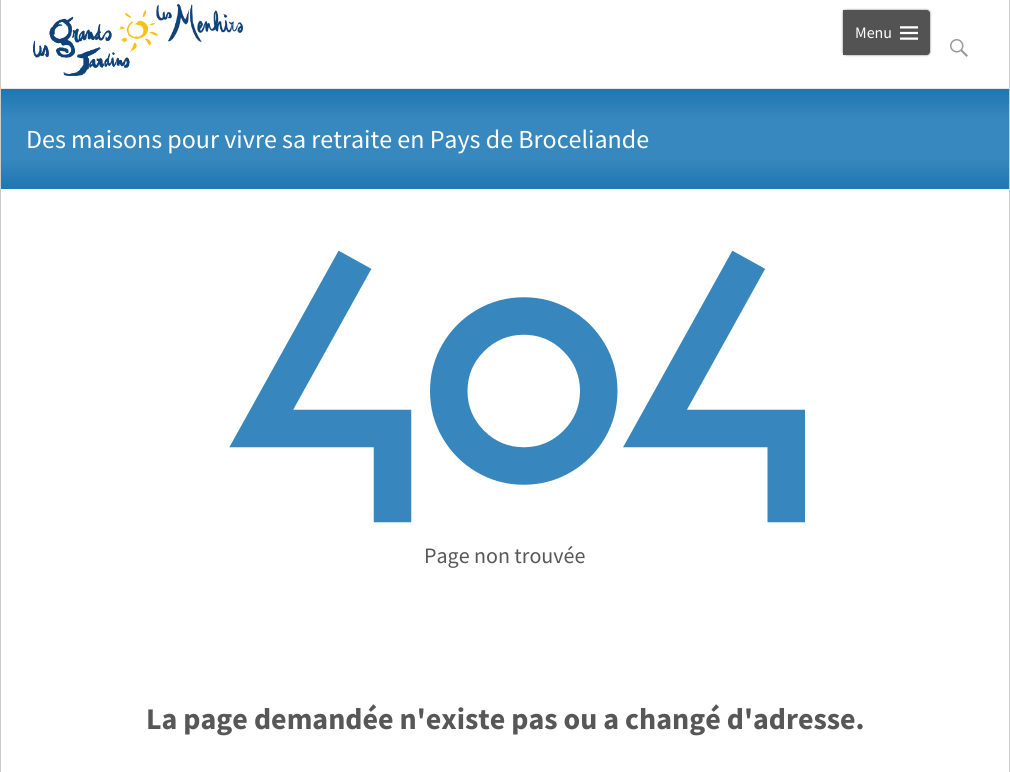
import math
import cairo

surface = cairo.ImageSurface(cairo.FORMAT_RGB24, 1010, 772)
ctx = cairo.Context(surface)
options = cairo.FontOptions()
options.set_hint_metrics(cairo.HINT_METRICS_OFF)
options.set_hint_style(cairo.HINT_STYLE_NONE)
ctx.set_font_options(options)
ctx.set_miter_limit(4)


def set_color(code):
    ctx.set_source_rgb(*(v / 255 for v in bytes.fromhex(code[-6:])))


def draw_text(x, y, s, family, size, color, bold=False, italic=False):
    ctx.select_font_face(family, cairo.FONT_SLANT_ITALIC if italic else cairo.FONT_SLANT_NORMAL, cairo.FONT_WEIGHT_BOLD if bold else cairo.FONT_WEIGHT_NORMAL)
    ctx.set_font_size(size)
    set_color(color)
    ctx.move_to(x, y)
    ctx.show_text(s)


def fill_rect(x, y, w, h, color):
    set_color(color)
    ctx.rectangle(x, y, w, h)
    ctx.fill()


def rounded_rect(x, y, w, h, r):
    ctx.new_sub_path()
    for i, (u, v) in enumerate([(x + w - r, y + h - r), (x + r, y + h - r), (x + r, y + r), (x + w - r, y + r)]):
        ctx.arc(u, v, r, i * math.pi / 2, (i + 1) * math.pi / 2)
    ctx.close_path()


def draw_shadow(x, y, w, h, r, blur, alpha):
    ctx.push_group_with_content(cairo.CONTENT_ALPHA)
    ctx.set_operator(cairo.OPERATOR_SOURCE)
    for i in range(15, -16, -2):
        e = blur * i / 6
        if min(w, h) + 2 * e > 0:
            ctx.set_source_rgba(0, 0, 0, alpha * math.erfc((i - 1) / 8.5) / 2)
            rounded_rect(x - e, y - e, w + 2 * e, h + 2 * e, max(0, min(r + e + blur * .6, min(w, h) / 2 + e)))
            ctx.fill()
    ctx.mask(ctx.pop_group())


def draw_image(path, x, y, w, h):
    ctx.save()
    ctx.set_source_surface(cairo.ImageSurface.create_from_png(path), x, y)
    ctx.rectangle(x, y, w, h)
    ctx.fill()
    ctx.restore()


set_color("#ffffff")
ctx.paint()
fill_rect(1009, 0, 1, 772, "#cccccc")
fill_rect(0, 0, 1, 772, "#cccccc")
fill_rect(1, 88, 1008, 1, "#e7e7e7")
draw_image("assets/img1.png", 33, 4, 210, 72)
ctx.save()
ctx.set_fill_rule(cairo.FILL_RULE_EVEN_ODD)
ctx.new_path()
ctx.move_to(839, 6)
ctx.line_to(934, 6)
ctx.line_to(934, 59)
ctx.line_to(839, 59)
ctx.close_path()
ctx.move_to(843, 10)
ctx.line_to(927, 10)
ctx.curve_to(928.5, 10, 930, 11.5, 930, 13)
ctx.line_to(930, 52)
ctx.curve_to(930, 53.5, 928.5, 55, 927, 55)
ctx.line_to(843, 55)
ctx.close_path()
ctx.clip()
set_color("#323232")
draw_shadow(843, 10, 87, 45, 3, 1, 0.64)
ctx.restore()
ctx.set_source_rgba(0.157, 0.157, 0.157, 0.8)
ctx.new_path()
ctx.move_to(843, 10)
ctx.line_to(927, 10)
ctx.curve_to(928.5, 10, 930, 11.5, 930, 13)
ctx.line_to(930, 52)
ctx.curve_to(930, 53.5, 928.5, 55, 927, 55)
ctx.line_to(843, 55)
ctx.close_path()
ctx.fill()
draw_text(855, 38, "Menu", "Source Sans Pro", 16, "#ffffff")
draw_image("assets/img2.png", 900, 26, 18, 14)
draw_image("assets/img3.png", 950, 39, 18, 18)
gradient = cairo.LinearGradient(505, 89, 505, 189)
gradient.add_color_stop_rgba(0, 0.122, 0.463, 0.69, 1)
gradient.add_color_stop_rgba(0.3, 0.216, 0.533, 0.745, 1)
gradient.add_color_stop_rgba(0.69, 0.216, 0.533, 0.745, 1)
gradient.add_color_stop_rgba(1, 0.122, 0.463, 0.69, 1)
ctx.set_source(gradient)
ctx.rectangle(1, 89, 1008, 100)
ctx.fill()
draw_text(26, 148, "Des maisons pour vivre sa retraite en Pays de Broceliande", "Source Sans Pro", 26, "#ffffff")
draw_image("assets/img4.png", 229, 250, 576, 273)
draw_text(424, 563, "Page non trouvée", "Source Sans Pro", 22, "#575757")
draw_text(146, 729, "La page demandée n'existe pas ou a changé d'adresse.", "Source Sans Pro", 30, "#575757", bold=True)
surface.write_to_png("output.png")
